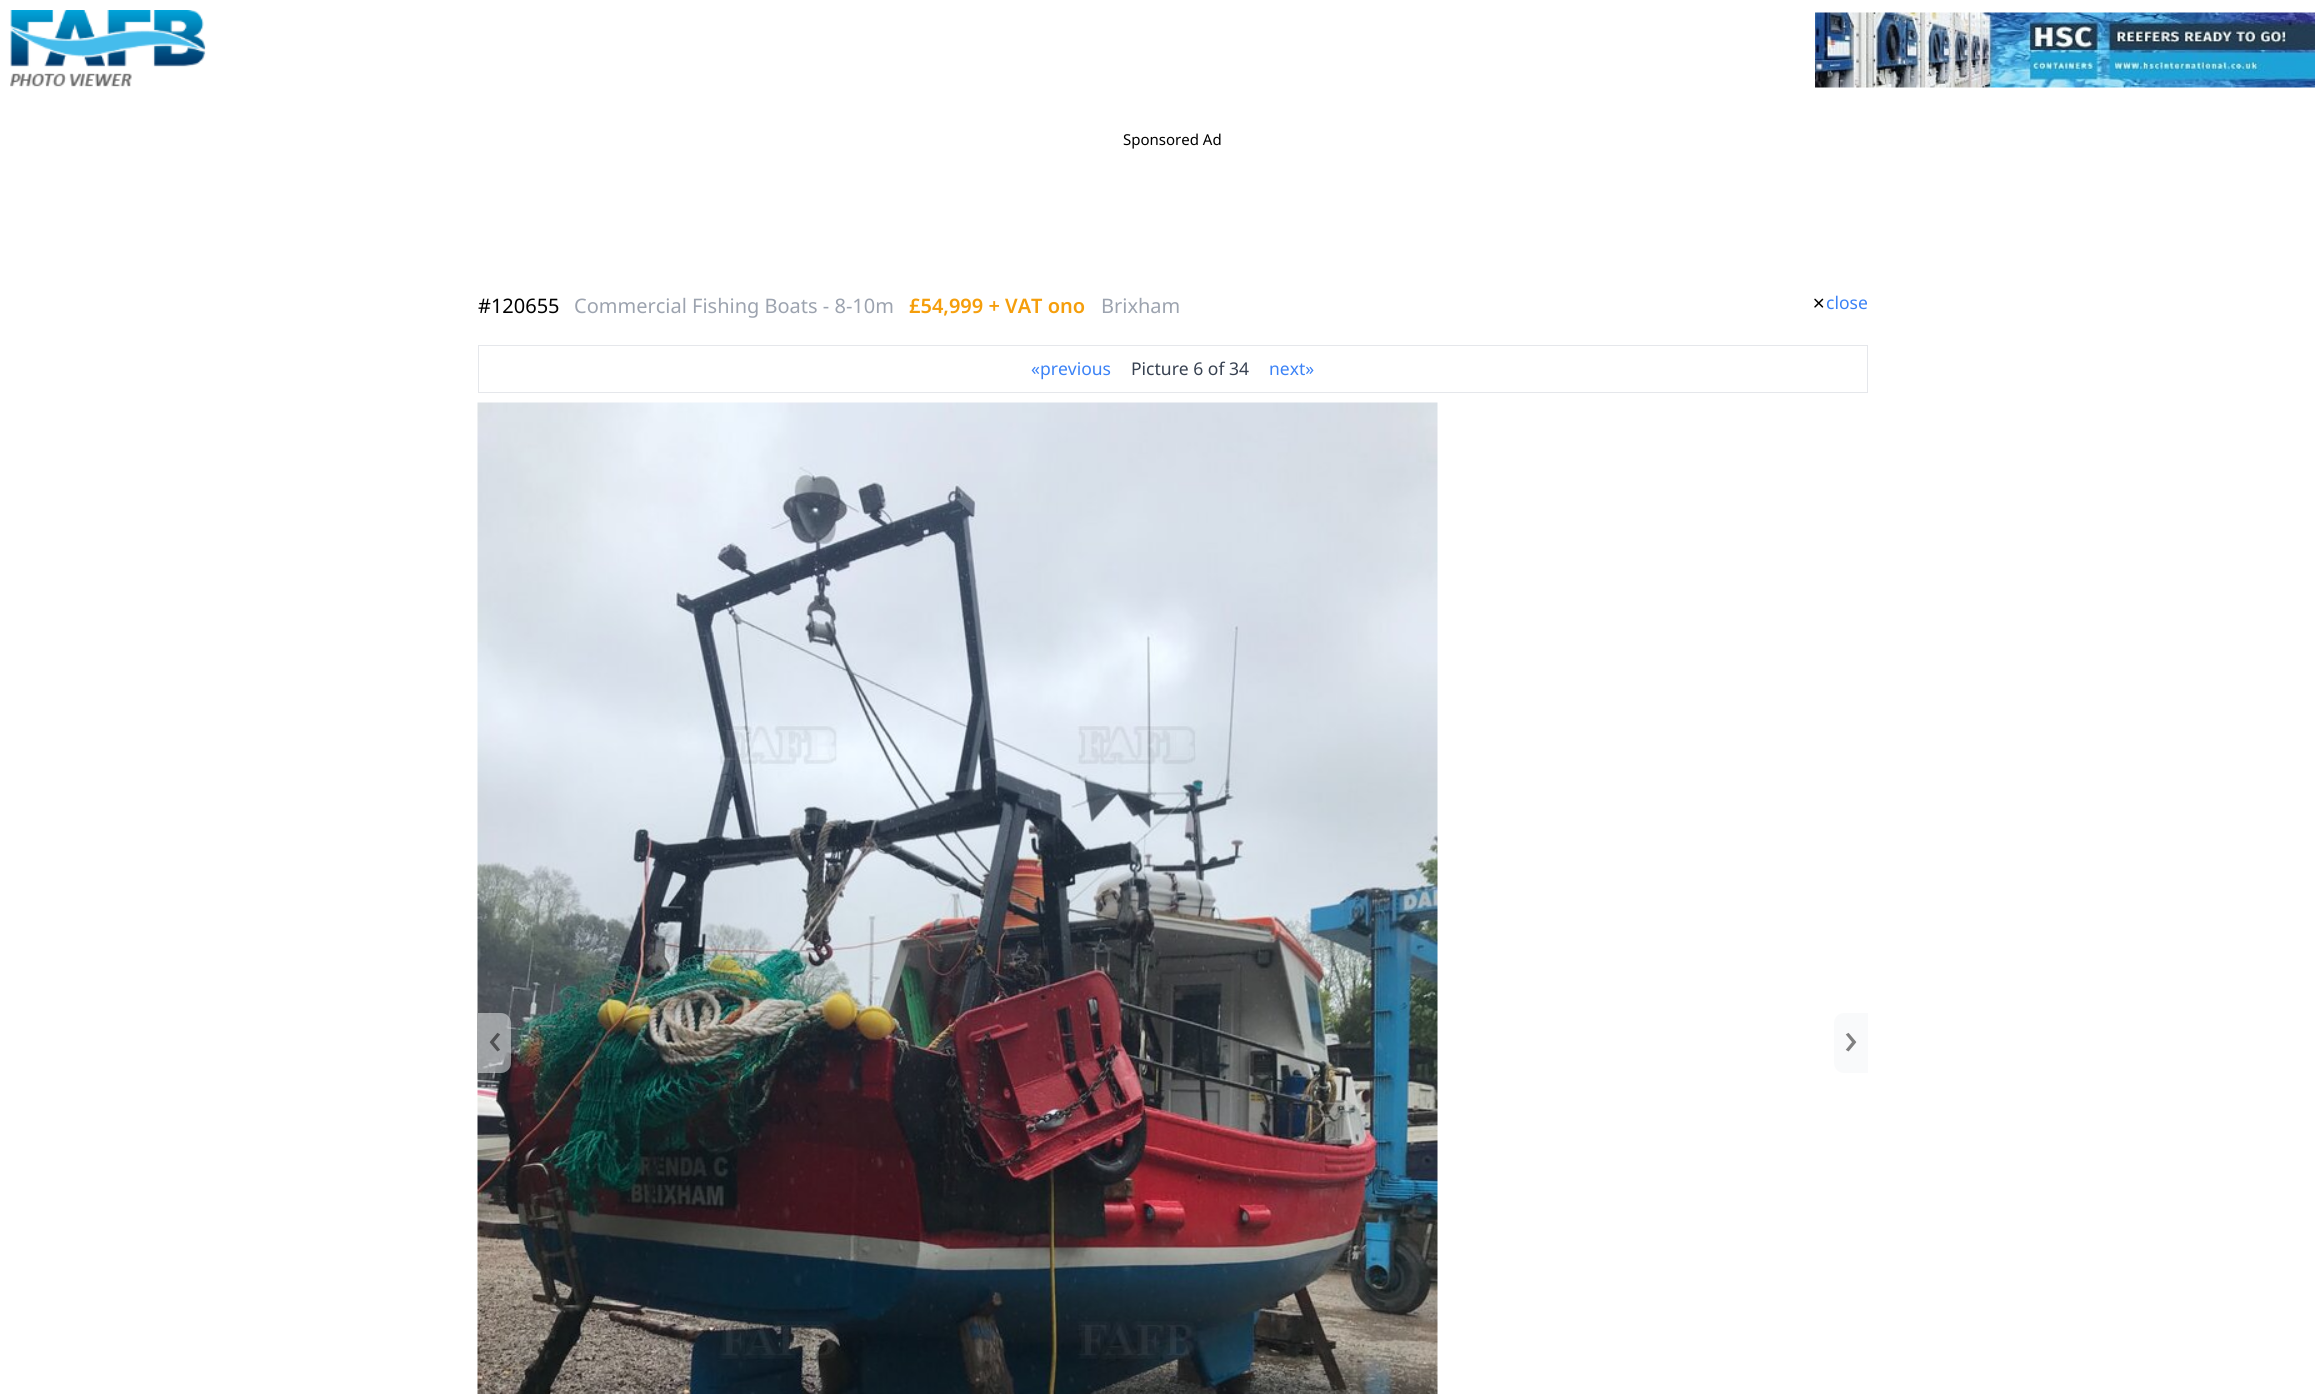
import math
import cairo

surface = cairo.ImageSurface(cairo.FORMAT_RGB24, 2324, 1394)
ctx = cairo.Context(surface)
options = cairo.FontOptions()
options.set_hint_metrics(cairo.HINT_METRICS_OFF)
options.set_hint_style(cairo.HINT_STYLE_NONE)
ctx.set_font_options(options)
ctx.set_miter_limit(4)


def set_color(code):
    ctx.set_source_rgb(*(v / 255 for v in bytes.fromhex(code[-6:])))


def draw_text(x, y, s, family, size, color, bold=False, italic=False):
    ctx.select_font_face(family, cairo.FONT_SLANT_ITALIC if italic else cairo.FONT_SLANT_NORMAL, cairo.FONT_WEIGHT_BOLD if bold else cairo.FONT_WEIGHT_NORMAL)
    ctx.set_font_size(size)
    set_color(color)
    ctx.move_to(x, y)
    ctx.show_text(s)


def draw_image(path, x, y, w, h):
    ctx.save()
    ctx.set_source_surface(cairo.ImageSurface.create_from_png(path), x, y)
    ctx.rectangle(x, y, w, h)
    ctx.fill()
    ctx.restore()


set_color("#ffffff")
ctx.paint()
draw_image("assets/img1.png", 10, 10, 196, 77)
draw_image("assets/img2.png", 1815, 12, 500, 76)
draw_text(1123, 145, "Sponsored Ad", "Noto Sans", 15, "#000000")
draw_text(478, 313, "#120655", "Noto Sans", 20, "#000000")
draw_text(574, 313, "Commercial Fishing Boats - 8-10m", "Noto Sans", 20, "#9ca3af")
draw_text(909, 313, "£54,999 + VAT ono", "Noto Sans SemiBold", 20, "#f59e0b")
draw_text(1101, 313, "Brixham", "Noto Sans", 20, "#9ca3af")
draw_image("assets/img3.png", 1814, 298, 10, 10)
draw_text(1826, 309, "close", "Noto Sans", 17.5, "#3b82f6")
ctx.rectangle(478.5, 345.5, 1389, 47)
set_color("#e5e7eb")
ctx.set_line_width(1)
ctx.stroke()
draw_text(1031, 375, "«previous", "Noto Sans", 17.5, "#3b82f6")
draw_text(1131, 375, "Picture 6 of 34", "Noto Sans", 17.5, "#374151")
draw_text(1269, 375, "next»", "Noto Sans", 17.5, "#3b82f6")
draw_image("assets/img4.png", 477, 402, 961, 992)
ctx.set_source_rgba(0.953, 0.957, 0.965, 0.5)
ctx.new_path()
ctx.move_to(478, 1013)
ctx.line_to(501, 1013)
ctx.curve_to(506.5, 1013, 511, 1017.5, 511, 1023)
ctx.line_to(511, 1063)
ctx.curve_to(511, 1068.5, 506.5, 1073, 501, 1073)
ctx.line_to(478, 1073)
ctx.close_path()
ctx.fill()
draw_text(488, 1054, "‹", "Noto Sans", 45, "#505153")
set_color("#f9fafb")
ctx.new_path()
ctx.move_to(1844, 1013)
ctx.line_to(1868, 1013)
ctx.line_to(1868, 1073)
ctx.line_to(1844, 1073)
ctx.curve_to(1838.5, 1073, 1834, 1068.5, 1834, 1063)
ctx.line_to(1834, 1023)
ctx.curve_to(1834, 1017.5, 1838.5, 1013, 1844, 1013)
ctx.close_path()
ctx.fill()
draw_text(1844, 1054, "›", "Noto Sans", 45, "#808080")
surface.write_to_png("output.png")
